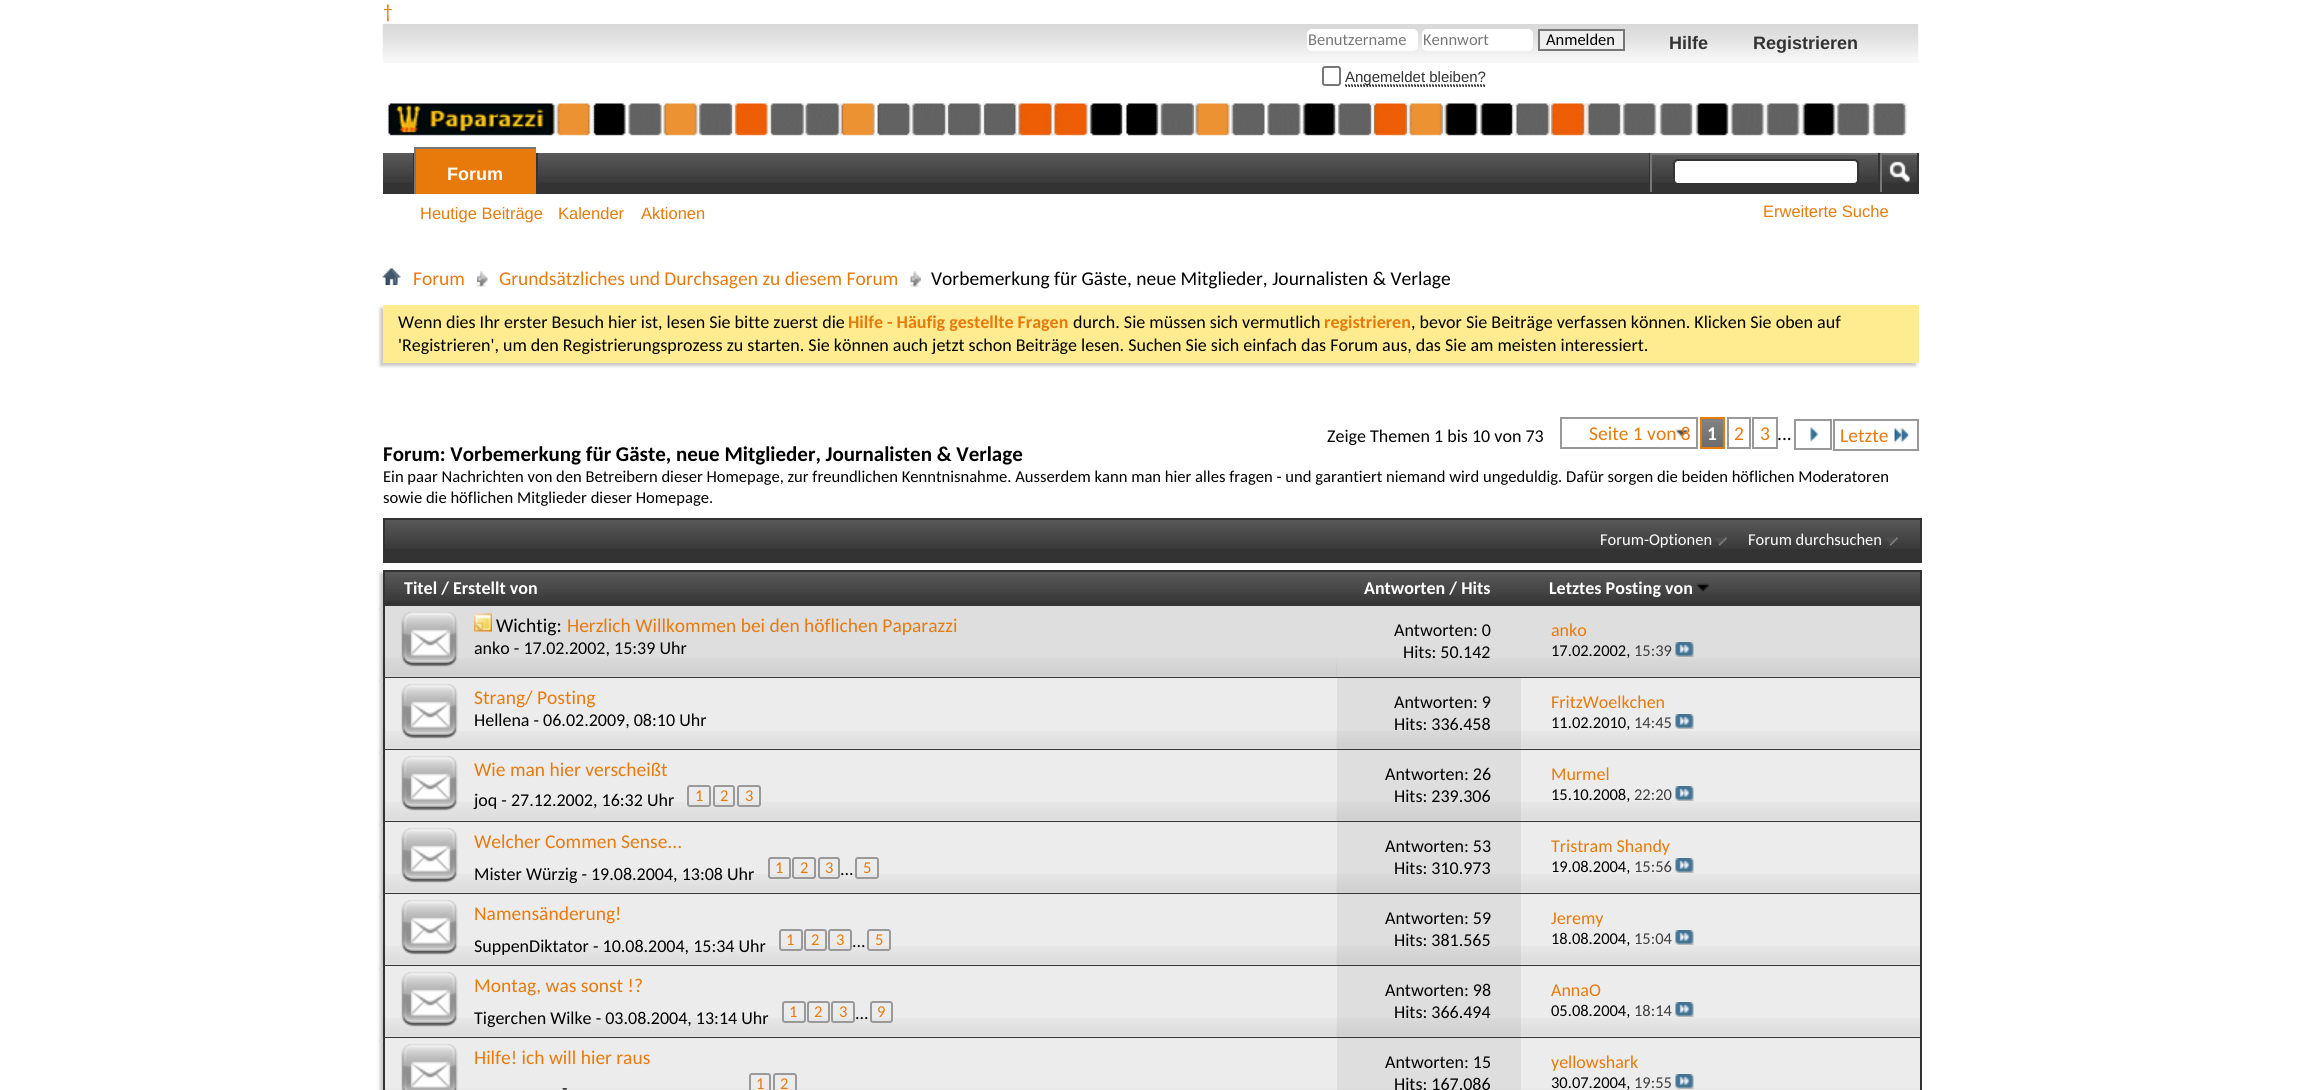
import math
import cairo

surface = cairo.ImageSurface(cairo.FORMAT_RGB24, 2301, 1090)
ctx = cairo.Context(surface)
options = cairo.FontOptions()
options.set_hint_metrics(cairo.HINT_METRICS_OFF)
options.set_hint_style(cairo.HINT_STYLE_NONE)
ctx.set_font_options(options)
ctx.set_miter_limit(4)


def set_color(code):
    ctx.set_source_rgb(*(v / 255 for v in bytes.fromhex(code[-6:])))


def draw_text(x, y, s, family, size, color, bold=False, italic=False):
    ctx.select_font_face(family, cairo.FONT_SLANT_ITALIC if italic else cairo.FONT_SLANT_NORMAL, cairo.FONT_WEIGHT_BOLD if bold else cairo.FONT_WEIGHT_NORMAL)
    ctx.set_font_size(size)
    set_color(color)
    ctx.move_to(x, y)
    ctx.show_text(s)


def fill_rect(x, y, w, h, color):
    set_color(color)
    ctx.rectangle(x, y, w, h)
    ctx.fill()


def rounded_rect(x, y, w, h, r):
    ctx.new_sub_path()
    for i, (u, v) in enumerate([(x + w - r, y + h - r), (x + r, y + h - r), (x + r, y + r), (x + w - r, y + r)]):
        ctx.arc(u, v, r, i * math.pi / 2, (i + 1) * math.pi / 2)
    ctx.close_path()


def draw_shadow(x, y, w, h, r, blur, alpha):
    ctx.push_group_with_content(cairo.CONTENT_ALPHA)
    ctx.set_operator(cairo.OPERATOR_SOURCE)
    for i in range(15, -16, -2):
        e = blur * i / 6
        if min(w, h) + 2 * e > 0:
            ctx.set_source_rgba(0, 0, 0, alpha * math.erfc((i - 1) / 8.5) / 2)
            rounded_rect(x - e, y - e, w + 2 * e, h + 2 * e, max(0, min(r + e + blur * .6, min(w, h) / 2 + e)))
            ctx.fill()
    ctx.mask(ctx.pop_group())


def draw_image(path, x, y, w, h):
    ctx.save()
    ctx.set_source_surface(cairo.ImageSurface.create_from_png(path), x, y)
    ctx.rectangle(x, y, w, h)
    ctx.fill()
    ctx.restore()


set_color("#ffffff")
ctx.paint()
draw_text(383, 18, "†", "Carlito", 19.5, "#e77a0b")
draw_image("assets/img1.png", 382, 24, 1537, 39)
set_color("#ffffff")
rounded_rect(1307, 29, 111, 22, 5)
ctx.fill()
draw_text(1308, 45, "Benutzername", "Carlito", 16.5, "#777777")
set_color("#ffffff")
rounded_rect(1422, 29, 111, 22, 5)
ctx.fill()
draw_text(1423, 45, "Kennwort", "Carlito", 16.5, "#777777")
set_color("#efefef")
ctx.rectangle(1539, 30, 85, 20)
ctx.fill_preserve()
set_color("#777777")
ctx.stroke()
draw_text(1546, 45, "Anmelden", "Carlito", 16.5, "#000000")
rounded_rect(1323, 67, 17, 18, 2)
set_color("#767676")
ctx.stroke()
ctx.new_path()
ctx.move_to(1345.5, 86)
ctx.line_to(1486.5, 86)
set_color("#000000")
ctx.set_line_width(1.5)
ctx.set_dash([1.5, 1.5])
ctx.stroke()
ctx.new_path()
ctx.move_to(1345, 85)
ctx.line_to(1486, 85)
set_color("#333333")
ctx.stroke()
draw_text(1345, 82, "Angemeldet bleiben?", "Liberation Sans", 15, "#333333")
draw_text(1669, 49, "Hilfe", "Liberation Sans", 18, "#333333", bold=True)
draw_text(1753, 49, "Registrieren", "Liberation Sans", 18, "#333333", bold=True)
draw_image("assets/img2.png", 387, 103, 1520, 33)
fill_rect(383, 153, 1536, 39, "#333333")
draw_image("assets/img3.png", 383, 153, 1534, 30)
fill_rect(536, 153, 2, 30, "#333333")
fill_rect(413, 153, 1, 30, "#333333")
fill_rect(383, 192, 1536, 2, "#333333")
fill_rect(416, 149, 120, 45, "#e77a0b")
fill_rect(414, 147, 122, 2, "#777777")
fill_rect(414, 147, 2, 47, "#777777")
draw_text(447, 180, "Forum", "Liberation Sans", 18, "#ffffff", bold=True)
draw_text(420, 219, "Heutige Beiträge", "Liberation Sans", 16.5, "#e77a0b")
draw_text(558, 219, "Kalender", "Liberation Sans", 16.5, "#e77a0b")
draw_text(641, 219, "Aktionen", "Liberation Sans", 16.5, "#e77a0b")
fill_rect(1649, 153, 1, 30, "#333333")
fill_rect(1650, 153, 228, 2, "#777777")
fill_rect(1650, 153, 2, 39, "#777777")
set_color("#ffffff")
rounded_rect(1674, 160, 184, 24, 4)
ctx.fill_preserve()
set_color("#333333")
ctx.set_line_width(2)
ctx.set_dash([])
ctx.stroke()
fill_rect(1878, 153, 2, 30, "#333333")
fill_rect(1880, 153, 37, 2, "#777777")
fill_rect(1880, 153, 2, 39, "#777777")
draw_image("assets/img4.png", 1889, 161, 21, 22)
draw_text(1763, 217, "Erweiterte Suche", "Liberation Sans", 16.5, "#e77a0b")
draw_image("assets/img5.png", 382, 268, 19, 17)
draw_image("assets/img6.png", 477, 271, 11, 16)
draw_text(413, 285, "Forum", "Carlito", 19.5, "#e77a0b")
draw_image("assets/img7.png", 910, 271, 11, 16)
draw_text(499, 285, "Grundsätzliches und Durchsagen zu diesem Forum", "Carlito", 19.5, "#e77a0b")
draw_text(931, 285, "Vorbemerkung für Gäste, neue Mitglieder, Journalisten & Verlage", "Carlito", 19.5, "#000000")
set_color("#c8c8c8")
draw_shadow(380, 308, 1536, 58, 0, 1.5, 1)
fill_rect(383, 305, 1536, 58, "#ffeb90")
draw_text(398, 328, "Wenn dies Ihr erster Besuch hier ist, lesen Sie bitte zuerst die", "Carlito", 18, "#000000")
draw_text(848, 328, "Hilfe - Häufig gestellte Fragen", "Carlito", 18, "#e77a0b", bold=True)
draw_text(1073, 328, "durch. Sie müssen sich vermutlich", "Carlito", 18, "#000000")
draw_text(1324, 328, "registrieren", "Carlito", 18, "#e77a0b", bold=True)
draw_text(1411, 328, ", bevor Sie Beiträge verfassen können. Klicken Sie oben auf", "Carlito", 18, "#000000")
draw_text(398, 351, "'Registrieren', um den Registrierungsprozess zu starten. Sie können auch jetzt schon Beiträge lesen. Suchen Sie sich einfach das Forum aus, das Sie am meisten interessiert.", "Carlito", 18, "#000000")
draw_text(1327, 442, "Zeige Themen 1 bis 10 von 73", "Carlito", 18, "#000000")
draw_image("assets/img8.png", 1675, 428, 14, 9)
ctx.rectangle(1561, 418, 136, 30)
set_color("#999999")
ctx.stroke()
draw_text(1589, 440, "Seite 1 von 8", "Carlito", 19.5, "#e77a0b")
fill_rect(1702, 419, 21, 28, "#666666")
draw_image("assets/img9.png", 1702, 419, 21, 28)
ctx.rectangle(1701, 418, 23, 30)
set_color("#e77a0b")
ctx.stroke()
draw_text(1707, 440, "1", "Carlito", 19.5, "#ffffff", bold=True)
ctx.rectangle(1728, 418, 22, 30)
set_color("#999999")
ctx.stroke()
draw_text(1734, 440, "2", "Carlito", 19.5, "#e77a0b")
ctx.rectangle(1753, 418, 24, 30)
set_color("#999999")
ctx.stroke()
draw_text(1760, 440, "3", "Carlito", 19.5, "#e77a0b")
draw_text(1777, 440, "...", "Carlito", 19.5, "#000000")
ctx.rectangle(1795, 420, 36, 29)
set_color("#999999")
ctx.stroke()
draw_image("assets/img10.png", 1810, 427, 9, 15)
draw_text(1840, 442, "Letzte", "Carlito", 19.5, "#e77a0b")
fill_rect(1833, 419, 86, 2, "#999999")
fill_rect(1833, 449, 56, 2, "#999999")
fill_rect(1833, 419, 2, 31, "#999999")
fill_rect(1917, 419, 2, 31, "#999999")
fill_rect(1889, 449, 30, 2, "#999999")
draw_image("assets/img11.png", 1894, 427, 16, 16)
draw_text(383, 461, "Forum: Vorbemerkung für Gäste, neue Mitglieder, Journalisten & Verlage", "Carlito", 21, "#000000", bold=True)
draw_text(383, 482, "Ein paar Nachrichten von den Betreibern dieser Homepage, zur freundlichen Kenntnisnahme. Ausserdem kann man hier alles fragen - und garantiert niemand wird ungeduldig. Dafür sorgen die beiden höflichen Moderatoren", "Carlito", 16.58, "#000000")
draw_text(383, 503, "sowie die höflichen Mitglieder dieser Homepage.", "Carlito", 16.58, "#000000")
fill_rect(385, 520, 1535, 41, "#333333")
draw_image("assets/img12.png", 385, 520, 1535, 29)
ctx.rectangle(384, 519, 1537, 43)
ctx.stroke()
draw_image("assets/img13.png", 1714, 537, 13, 9)
draw_text(1600, 545, "Forum-Optionen", "Carlito", 16.5, "#ffffff")
draw_image("assets/img14.png", 1885, 537, 13, 9)
draw_text(1748, 545, "Forum durchsuchen", "Carlito", 16.5, "#ffffff")
set_color("#c8c8c8")
draw_shadow(380, 573, 1539, 36, 0, 1.5, 1)
fill_rect(385, 572, 1535, 32, "#333333")
draw_image("assets/img15.png", 385, 572, 1535, 30)
ctx.rectangle(384, 571, 1537, 34)
ctx.stroke()
draw_text(404, 594, "Titel / Erstellt von", "Carlito", 18, "#ffffff", bold=True)
draw_text(1364, 594, "Antworten / Hits", "Carlito", 18, "#ffffff", bold=True)
draw_text(1549, 594, "Letztes Posting von", "Carlito", 18, "#ffffff", bold=True)
draw_image("assets/img16.png", 1696, 583, 14, 9)
set_color("#c8c8c8")
draw_shadow(380, 609, 1536, 72, 0, 1.5, 1)
fill_rect(385, 606, 1535, 71, "#dedede")
draw_image("assets/img17.png", 382, 658, 1538, 19)
fill_rect(1920, 606, 2, 72, "#333333")
fill_rect(383, 677, 1539, 1, "#333333")
fill_rect(383, 606, 2, 72, "#333333")
draw_image("assets/img18.png", 401, 612, 57, 55)
draw_image("assets/img19.png", 474, 613, 18, 19)
draw_text(496, 632, "Wichtig:", "Carlito", 19.5, "#000000")
draw_text(567, 632, "Herzlich Willkommen bei den höflichen Paparazzi", "Carlito", 19.5, "#e77a0b")
draw_text(474, 654, "anko - 17.02.2002, 15:39 Uhr", "Carlito", 18, "#000000")
fill_rect(1337, 658, 184, 19, "#dedede")
draw_image("assets/img20.png", 1336, 658, 185, 19)
draw_text(1394, 636, "Antworten: 0", "Carlito", 18, "#000000")
draw_text(1403, 658, "Hits: 50.142", "Carlito", 18, "#000000")
draw_text(1551, 636, "anko", "Carlito", 18, "#e77a0b")
draw_text(1551, 656, "17.02.2002,", "Carlito", 16.5, "#000000")
draw_text(1634, 656, "15:39", "Carlito", 16.5, "#3e3e3e")
draw_image("assets/img21.png", 1675, 642, 19, 15)
set_color("#c8c8c8")
draw_shadow(380, 681, 1536, 72, 0, 1.5, 1)
fill_rect(385, 678, 1535, 71, "#ececec")
draw_image("assets/img22.png", 382, 731, 1538, 18)
fill_rect(1920, 678, 2, 72, "#333333")
fill_rect(383, 749, 1539, 1, "#333333")
fill_rect(383, 678, 2, 72, "#333333")
draw_image("assets/img23.png", 401, 684, 57, 55)
draw_text(474, 704, "Strang/ Posting", "Carlito", 19.5, "#e77a0b")
draw_text(474, 726, "Hellena - 06.02.2009, 08:10 Uhr", "Carlito", 18, "#000000")
fill_rect(1337, 678, 184, 71, "#dedede")
draw_image("assets/img24.png", 1336, 731, 185, 18)
draw_text(1394, 708, "Antworten: 9", "Carlito", 18, "#000000")
draw_text(1394, 730, "Hits: 336.458", "Carlito", 18, "#000000")
draw_text(1551, 708, "FritzWoelkchen", "Carlito", 18, "#e77a0b")
draw_text(1551, 728, "11.02.2010,", "Carlito", 16.5, "#000000")
draw_text(1634, 728, "14:45", "Carlito", 16.5, "#3e3e3e")
draw_image("assets/img25.png", 1675, 714, 19, 15)
set_color("#c8c8c8")
draw_shadow(380, 753, 1536, 72, 0, 1.5, 1)
fill_rect(385, 750, 1535, 71, "#ececec")
draw_image("assets/img26.png", 382, 802, 1538, 19)
fill_rect(1920, 750, 2, 72, "#333333")
fill_rect(383, 821, 1539, 1, "#333333")
fill_rect(383, 750, 2, 72, "#333333")
draw_image("assets/img27.png", 401, 756, 57, 55)
draw_text(474, 776, "Wie man hier verscheißt", "Carlito", 19.5, "#e77a0b")
draw_text(474, 806, "joq - 27.12.2002, 16:32 Uhr", "Carlito", 18, "#000000")
rounded_rect(688, 786, 22, 20, 2)
set_color("#999999")
ctx.stroke()
draw_text(695, 801, "1", "Carlito", 16.5, "#e77a0b")
rounded_rect(714, 786, 20, 20, 2)
set_color("#999999")
ctx.stroke()
draw_text(720, 801, "2", "Carlito", 16.5, "#e77a0b")
rounded_rect(738, 786, 22, 20, 2)
set_color("#999999")
ctx.stroke()
draw_text(745, 801, "3", "Carlito", 16.5, "#e77a0b")
fill_rect(1337, 750, 184, 71, "#dedede")
draw_image("assets/img28.png", 1336, 802, 185, 19)
draw_text(1385, 780, "Antworten: 26", "Carlito", 18, "#000000")
draw_text(1394, 802, "Hits: 239.306", "Carlito", 18, "#000000")
draw_text(1551, 780, "Murmel", "Carlito", 18, "#e77a0b")
draw_text(1551, 800, "15.10.2008,", "Carlito", 16.5, "#000000")
draw_text(1634, 800, "22:20", "Carlito", 16.5, "#3e3e3e")
draw_image("assets/img25.png", 1675, 786, 19, 15)
set_color("#c8c8c8")
draw_shadow(380, 825, 1536, 72, 0, 1.5, 1)
fill_rect(385, 822, 1535, 71, "#ececec")
draw_image("assets/img26.png", 382, 874, 1538, 19)
fill_rect(1920, 822, 2, 72, "#333333")
fill_rect(383, 893, 1539, 1, "#333333")
fill_rect(383, 822, 2, 72, "#333333")
draw_image("assets/img27.png", 401, 828, 57, 55)
draw_text(474, 848, "Welcher Commen Sense...", "Carlito", 19.5, "#e77a0b")
draw_text(474, 880, "Mister Würzig - 19.08.2004, 13:08 Uhr", "Carlito", 18, "#000000")
rounded_rect(769, 858, 21, 20, 2)
set_color("#999999")
ctx.stroke()
draw_text(775, 873, "1", "Carlito", 16.5, "#e77a0b")
rounded_rect(793, 858, 22, 20, 2)
set_color("#999999")
ctx.stroke()
draw_text(800, 873, "2", "Carlito", 16.5, "#e77a0b")
rounded_rect(819, 858, 20, 20, 2)
set_color("#999999")
ctx.stroke()
draw_text(825, 873, "3", "Carlito", 16.5, "#e77a0b")
draw_text(840, 875, "...", "Carlito", 18, "#000000")
rounded_rect(856, 858, 22, 20, 2)
set_color("#999999")
ctx.stroke()
draw_text(863, 873, "5", "Carlito", 16.5, "#e77a0b")
fill_rect(1337, 822, 184, 71, "#dedede")
draw_image("assets/img28.png", 1336, 874, 185, 19)
draw_text(1385, 852, "Antworten: 53", "Carlito", 18, "#000000")
draw_text(1394, 874, "Hits: 310.973", "Carlito", 18, "#000000")
draw_text(1551, 852, "Tristram Shandy", "Carlito", 18, "#e77a0b")
draw_text(1551, 872, "19.08.2004,", "Carlito", 16.5, "#000000")
draw_text(1634, 872, "15:56", "Carlito", 16.5, "#3e3e3e")
draw_image("assets/img25.png", 1675, 858, 19, 15)
set_color("#c8c8c8")
draw_shadow(380, 897, 1536, 72, 0, 1.5, 1)
fill_rect(385, 894, 1535, 71, "#ececec")
draw_image("assets/img26.png", 382, 946, 1538, 19)
fill_rect(1920, 894, 2, 72, "#333333")
fill_rect(383, 965, 1539, 1, "#333333")
fill_rect(383, 894, 2, 72, "#333333")
draw_image("assets/img27.png", 401, 900, 57, 55)
draw_text(474, 920, "Namensänderung!", "Carlito", 19.5, "#e77a0b")
draw_text(474, 952, "SuppenDiktator - 10.08.2004, 15:34 Uhr", "Carlito", 18, "#000000")
rounded_rect(780, 930, 22, 20, 2)
set_color("#999999")
ctx.stroke()
draw_text(786, 945, "1", "Carlito", 16.5, "#e77a0b")
rounded_rect(805, 930, 21, 20, 2)
set_color("#999999")
ctx.stroke()
draw_text(811, 945, "2", "Carlito", 16.5, "#e77a0b")
rounded_rect(829, 930, 22, 20, 2)
set_color("#999999")
ctx.stroke()
draw_text(836, 945, "3", "Carlito", 16.5, "#e77a0b")
draw_text(852, 947, "...", "Carlito", 18, "#000000")
rounded_rect(868, 930, 22, 20, 2)
set_color("#999999")
ctx.stroke()
draw_text(875, 945, "5", "Carlito", 16.5, "#e77a0b")
fill_rect(1337, 894, 184, 71, "#dedede")
draw_image("assets/img28.png", 1336, 946, 185, 19)
draw_text(1385, 924, "Antworten: 59", "Carlito", 18, "#000000")
draw_text(1394, 946, "Hits: 381.565", "Carlito", 18, "#000000")
draw_text(1551, 924, "Jeremy", "Carlito", 18, "#e77a0b")
draw_text(1551, 944, "18.08.2004,", "Carlito", 16.5, "#000000")
draw_text(1634, 944, "15:04", "Carlito", 16.5, "#3e3e3e")
draw_image("assets/img25.png", 1675, 930, 19, 15)
set_color("#c8c8c8")
draw_shadow(380, 969, 1536, 72, 0, 1.5, 1)
fill_rect(385, 966, 1535, 71, "#ececec")
draw_image("assets/img26.png", 382, 1018, 1538, 19)
fill_rect(1920, 966, 2, 72, "#333333")
fill_rect(383, 1037, 1539, 1, "#333333")
fill_rect(383, 966, 2, 72, "#333333")
draw_image("assets/img27.png", 401, 972, 57, 55)
draw_text(474, 992, "Montag, was sonst !?", "Carlito", 19.5, "#e77a0b")
draw_text(474, 1024, "Tigerchen Wilke - 03.08.2004, 13:14 Uhr", "Carlito", 18, "#000000")
rounded_rect(783, 1002, 22, 20, 2)
set_color("#999999")
ctx.stroke()
draw_text(789, 1017, "1", "Carlito", 16.5, "#e77a0b")
rounded_rect(808, 1002, 21, 20, 2)
set_color("#999999")
ctx.stroke()
draw_text(814, 1017, "2", "Carlito", 16.5, "#e77a0b")
rounded_rect(832, 1002, 22, 20, 2)
set_color("#999999")
ctx.stroke()
draw_text(839, 1017, "3", "Carlito", 16.5, "#e77a0b")
rounded_rect(871, 1002, 21, 20, 2)
set_color("#999999")
ctx.stroke()
draw_text(877, 1017, "9", "Carlito", 16.5, "#e77a0b")
draw_text(855, 1019, "...", "Carlito", 18, "#000000")
fill_rect(1337, 966, 184, 71, "#dedede")
draw_image("assets/img28.png", 1336, 1018, 185, 19)
draw_text(1385, 996, "Antworten: 98", "Carlito", 18, "#000000")
draw_text(1394, 1018, "Hits: 366.494", "Carlito", 18, "#000000")
draw_text(1551, 996, "AnnaO", "Carlito", 18, "#e77a0b")
draw_text(1551, 1016, "05.08.2004,", "Carlito", 16.5, "#000000")
draw_text(1634, 1016, "18:14", "Carlito", 16.5, "#3e3e3e")
draw_image("assets/img25.png", 1675, 1002, 19, 15)
set_color("#c8c8c8")
draw_shadow(380, 1041, 1536, 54, 0, 1.5, 1)
fill_rect(385, 1038, 1535, 51, "#ececec")
fill_rect(383, 1089, 1538, 1, "#e7e7e7")
fill_rect(1920, 1038, 2, 52, "#333333")
fill_rect(383, 1038, 2, 52, "#333333")
draw_image("assets/img29.png", 401, 1044, 57, 46)
draw_text(474, 1064, "Hilfe! ich will hier raus", "Carlito", 19.5, "#e77a0b")
draw_text(562, 1094, "-", "Carlito", 18, "#000000")
rounded_rect(750, 1074, 20, 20, 2)
set_color("#999999")
ctx.stroke()
draw_text(756, 1089, "1", "Carlito", 16.5, "#e77a0b")
rounded_rect(774, 1074, 22, 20, 2)
set_color("#999999")
ctx.stroke()
draw_text(780, 1089, "2", "Carlito", 16.5, "#e77a0b")
fill_rect(1337, 1038, 184, 51, "#dedede")
fill_rect(1337, 1089, 184, 1, "#dadada")
draw_text(1385, 1068, "Antworten: 15", "Carlito", 18, "#000000")
draw_text(1394, 1090, "Hits: 167.086", "Carlito", 18, "#000000")
draw_text(1551, 1068, "yellowshark", "Carlito", 18, "#e77a0b")
draw_text(1551, 1088, "30.07.2004,", "Carlito", 16.5, "#000000")
draw_text(1634, 1088, "19:55", "Carlito", 16.5, "#3e3e3e")
draw_image("assets/img25.png", 1675, 1074, 19, 15)
surface.write_to_png("output.png")
